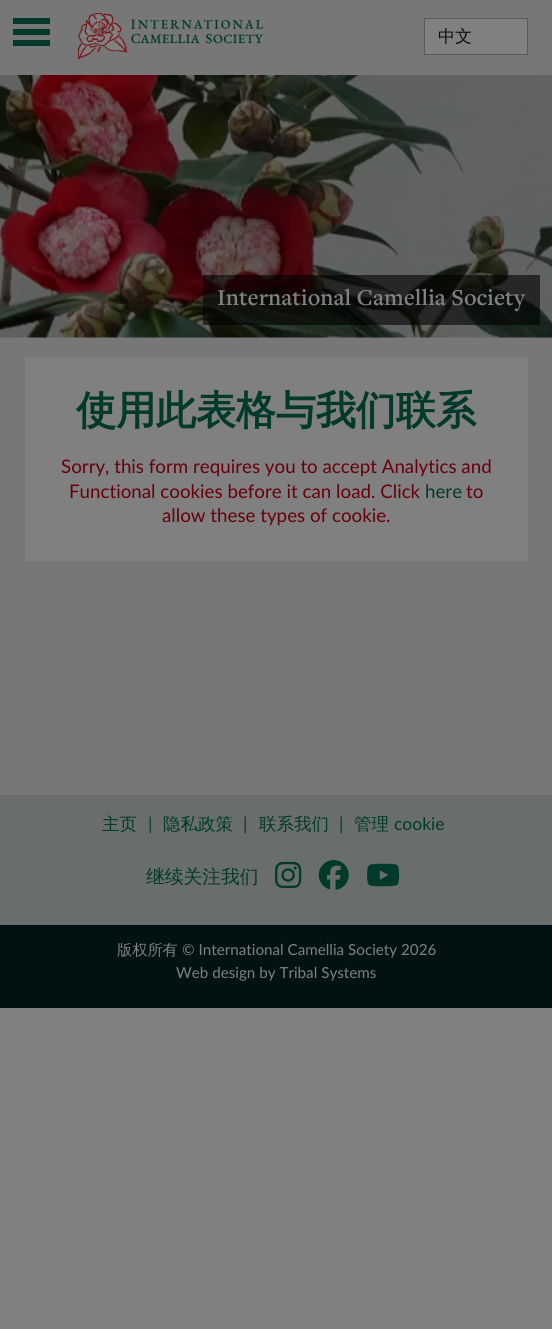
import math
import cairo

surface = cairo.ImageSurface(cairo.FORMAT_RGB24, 552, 1329)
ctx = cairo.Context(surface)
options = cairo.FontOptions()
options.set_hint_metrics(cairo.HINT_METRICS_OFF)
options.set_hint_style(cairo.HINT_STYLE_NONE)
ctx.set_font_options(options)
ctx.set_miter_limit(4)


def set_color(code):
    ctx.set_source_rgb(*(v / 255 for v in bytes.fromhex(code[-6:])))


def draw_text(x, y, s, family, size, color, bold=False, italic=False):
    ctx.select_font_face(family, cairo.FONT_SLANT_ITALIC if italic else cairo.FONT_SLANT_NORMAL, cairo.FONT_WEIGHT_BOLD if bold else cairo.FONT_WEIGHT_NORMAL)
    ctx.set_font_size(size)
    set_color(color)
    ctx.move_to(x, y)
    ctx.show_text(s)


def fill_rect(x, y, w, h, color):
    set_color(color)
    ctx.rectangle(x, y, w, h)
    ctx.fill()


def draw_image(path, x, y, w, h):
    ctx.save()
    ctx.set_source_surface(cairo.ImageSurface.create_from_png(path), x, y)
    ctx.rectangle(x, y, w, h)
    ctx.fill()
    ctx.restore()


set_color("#808080")
ctx.paint()
fill_rect(0, 925, 552, 83, "#011213")
fill_rect(0, 0, 552, 75, "#777777")
fill_rect(13, 18, 37, 6, "#013a2a")
fill_rect(13, 29, 37, 6, "#013a2a")
fill_rect(13, 40, 37, 6, "#013a2a")
draw_image("assets/img1.png", 78, 13, 186, 47)
set_color("#808080")
ctx.rectangle(424.5, 18.5, 103, 36)
ctx.fill_preserve()
set_color("#5b5b5b")
ctx.set_line_width(1)
ctx.stroke()
draw_text(438, 42, "中文", "WenQuanYi Zen Hei Medium", 17, "#0b0b0b")
fill_rect(0, 337, 552, 458, "#777777")
draw_image("assets/img2.png", 0, 75, 552, 263)
ctx.set_source_rgba(0, 0, 0, 0.6)
ctx.rectangle(203, 275, 337, 50)
ctx.fill()
draw_text(217, 305, "International Camellia Society", "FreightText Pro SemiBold", 23.6, "#808080")
fill_rect(25, 358, 503, 203, "#808080")
draw_text(76, 424, "使用此表格与我们联系", "WenQuanYi Zen Hei", 40, "#013a2a", bold=True)
draw_text(61, 473, "Sorry, this form requires you to accept Analytics and", "Lato", 18.75, "#670009")
draw_text(69, 498, "Functional cookies before it can load. Click", "Lato", 18.75, "#670009")
draw_text(425, 498, "here", "Lato", 18.75, "#013a2a")
draw_text(466, 498, "to", "Lato", 18.75, "#670009")
draw_text(162, 522, "allow these types of cookie.", "Lato", 18.75, "#670009")
fill_rect(0, 795, 552, 130, "#696e6b")
draw_text(102, 830, "主页", "WenQuanYi Zen Hei Medium", 17.5, "#013a2a")
draw_text(148, 830, "|", "Lato", 17.5, "#013a2a")
draw_text(163, 830, "隐私政策", "WenQuanYi Zen Hei Medium", 17.5, "#013a2a")
draw_text(243, 830, "|", "Lato", 17.5, "#013a2a")
draw_text(259, 830, "联系我们", "WenQuanYi Zen Hei Medium", 17.5, "#013a2a")
draw_text(339, 830, "|", "Lato", 17.5, "#013a2a")
draw_text(354, 830, "管理", "WenQuanYi Zen Hei Medium", 17.5, "#013a2a")
draw_text(394, 830, "cookie", "Lato", 17.5, "#013a2a")
draw_text(146, 883, "继续关注我们", "WenQuanYi Zen Hei Medium", 18.75, "#013a2a")
draw_image("assets/img3.png", 275, 861, 27, 28)
draw_image("assets/img4.png", 318, 860, 31, 30)
draw_image("assets/img5.png", 367, 863, 33, 24)
draw_text(117, 955, "版权所有", "WenQuanYi Zen Hei Medium", 15.2, "#808080")
draw_text(182, 955, "© International Camellia Society 2026", "Lato", 15.2, "#808080")
draw_text(176, 978, "Web design by Tribal Systems", "Lato", 15.2, "#808080")
surface.write_to_png("output.png")
